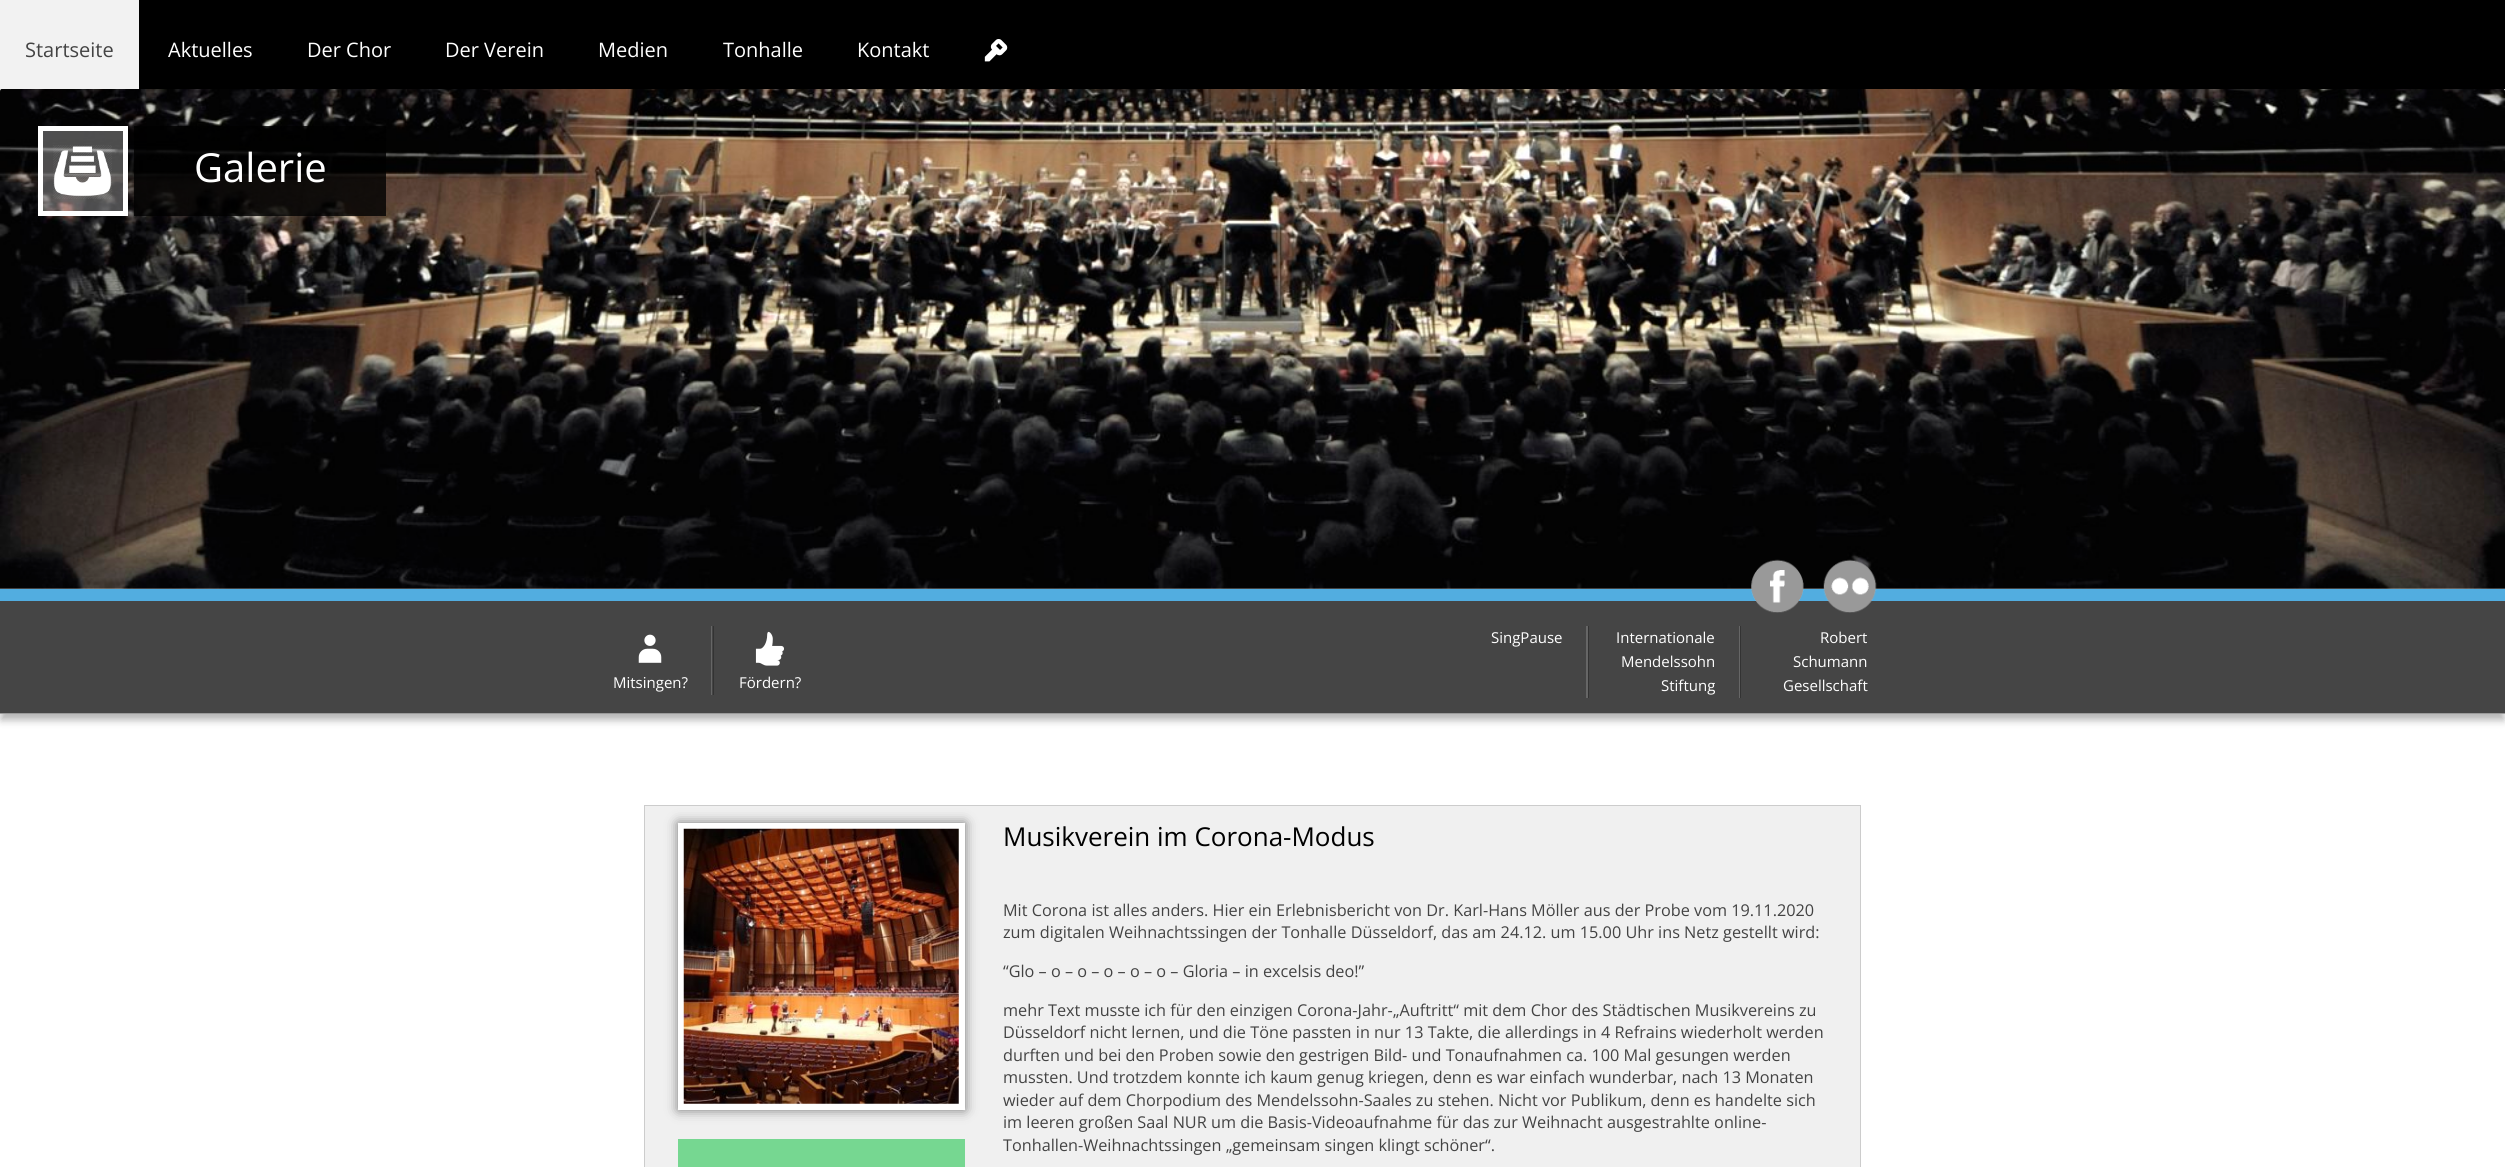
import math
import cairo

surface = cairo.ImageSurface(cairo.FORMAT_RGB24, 2505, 1167)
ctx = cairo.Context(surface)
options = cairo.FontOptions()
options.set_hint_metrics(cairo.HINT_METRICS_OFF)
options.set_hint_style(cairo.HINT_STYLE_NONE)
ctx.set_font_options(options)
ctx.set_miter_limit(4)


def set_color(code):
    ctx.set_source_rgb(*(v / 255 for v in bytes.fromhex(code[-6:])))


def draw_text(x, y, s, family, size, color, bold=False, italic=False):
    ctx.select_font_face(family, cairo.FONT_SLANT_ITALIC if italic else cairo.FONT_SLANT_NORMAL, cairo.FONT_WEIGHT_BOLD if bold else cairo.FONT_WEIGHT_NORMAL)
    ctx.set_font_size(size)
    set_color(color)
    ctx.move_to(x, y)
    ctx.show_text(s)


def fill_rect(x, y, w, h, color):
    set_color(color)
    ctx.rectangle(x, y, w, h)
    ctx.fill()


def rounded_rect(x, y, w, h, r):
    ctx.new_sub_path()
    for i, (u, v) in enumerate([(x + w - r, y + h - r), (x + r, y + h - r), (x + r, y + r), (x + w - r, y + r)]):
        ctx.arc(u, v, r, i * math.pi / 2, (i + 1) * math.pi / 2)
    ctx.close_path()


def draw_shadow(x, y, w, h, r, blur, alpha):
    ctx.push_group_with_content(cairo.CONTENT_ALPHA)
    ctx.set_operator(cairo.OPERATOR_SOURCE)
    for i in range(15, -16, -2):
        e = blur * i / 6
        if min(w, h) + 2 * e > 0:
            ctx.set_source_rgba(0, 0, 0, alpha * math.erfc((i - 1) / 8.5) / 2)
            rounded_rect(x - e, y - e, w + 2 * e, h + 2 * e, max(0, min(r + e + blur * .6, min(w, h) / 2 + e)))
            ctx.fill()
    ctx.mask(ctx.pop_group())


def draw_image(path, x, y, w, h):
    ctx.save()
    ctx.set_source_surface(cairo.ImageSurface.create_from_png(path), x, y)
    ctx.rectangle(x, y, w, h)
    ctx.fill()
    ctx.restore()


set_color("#ffffff")
ctx.paint()
fill_rect(139, 0, 2366, 89, "#000000")
fill_rect(0, 0, 139, 89, "#f2f2f2")
draw_text(25, 57, "Startseite", "Open Sans", 20, "#434343")
draw_text(168, 57, "Aktuelles", "Open Sans", 20, "#ffffff")
draw_text(307, 57, "Der Chor", "Open Sans", 20, "#ffffff")
draw_text(445, 57, "Der Verein", "Open Sans", 20, "#ffffff")
draw_text(598, 57, "Medien", "Open Sans", 20, "#ffffff")
draw_text(723, 57, "Tonhalle", "Open Sans", 20, "#ffffff")
draw_text(857, 57, "Kontakt", "Open Sans", 20, "#ffffff")
draw_image("assets/img1.png", 984, 39, 24, 23)
set_color("#000000")
draw_shadow(1, 598, 2503, 122, 0, 4, 0.3)
draw_image("assets/img2.png", 0, 89, 2505, 500)
ctx.set_source_rgba(1, 1, 1, 0.3)
ctx.rectangle(40.5, 128.5, 85, 85)
ctx.fill_preserve()
set_color("#ffffff")
ctx.set_line_width(5)
ctx.stroke()
draw_image("assets/img3.png", 53, 145, 59, 54)
ctx.set_source_rgba(0, 0, 0, 0.8)
ctx.rectangle(134, 126, 252, 90)
ctx.fill()
draw_text(194, 182, "Galerie", "Open Sans", 40, "#ffffff")
fill_rect(0, 601, 2505, 112, "#454545")
fill_rect(0, 589, 2505, 12, "#52ade0")
fill_rect(0, 713, 2505, 1, "#999999")
draw_image("assets/img4.png", 1751, 559, 53, 54)
draw_image("assets/img5.png", 1823, 559, 54, 54)
draw_image("assets/img6.png", 638, 634, 24, 29)
draw_text(613, 688, "Mitsingen?", "Open Sans", 15, "#ffffff")
set_color("#666666")
ctx.new_path()
ctx.move_to(711, 626)
ctx.line_to(711, 695)
ctx.line_to(712, 695)
ctx.line_to(712, 626)
ctx.line_to(825, 626)
ctx.close_path()
ctx.fill()
fill_rect(713, 626, 1, 69, "#333333")
draw_image("assets/img7.png", 755, 631, 29, 35)
draw_text(739, 688, "Fördern?", "Open Sans", 15, "#ffffff")
draw_text(1491, 643, "SingPause", "Open Sans", 15, "#ffffff")
set_color("#666666")
ctx.new_path()
ctx.move_to(1586, 626)
ctx.line_to(1586, 698)
ctx.line_to(1739, 698)
ctx.line_to(1588, 698)
ctx.line_to(1588, 626)
ctx.line_to(1739, 626)
ctx.close_path()
ctx.fill()
fill_rect(1588, 626, 1, 72, "#333333")
draw_text(1616, 643, "Internationale", "Open Sans", 15, "#ffffff")
draw_text(1621, 667, "Mendelssohn", "Open Sans", 15, "#ffffff")
draw_text(1661, 691, "Stiftung", "Open Sans", 15, "#ffffff")
set_color("#666666")
ctx.new_path()
ctx.move_to(1739, 626)
ctx.line_to(1739, 698)
ctx.line_to(1891, 698)
ctx.line_to(1740, 698)
ctx.line_to(1740, 626)
ctx.line_to(1891, 626)
ctx.close_path()
ctx.fill()
fill_rect(1740, 626, 1, 72, "#333333")
draw_text(1820, 643, "Robert", "Open Sans", 15, "#ffffff")
draw_text(1793, 667, "Schumann", "Open Sans", 15, "#ffffff")
draw_text(1783, 691, "Gesellschaft", "Open Sans", 15, "#ffffff")
set_color("#f0f0f0")
ctx.rectangle(644.5, 805.5, 1216, 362)
ctx.fill_preserve()
set_color("#cccccc")
ctx.set_line_width(1)
ctx.stroke()
set_color("#000000")
draw_shadow(678, 823, 287, 287, 0, 6, 0.5)
fill_rect(678, 823, 287, 287, "#ffffff")
draw_image("assets/img8.png", 683, 828, 276, 276)
fill_rect(678, 1139, 287, 28, "#76d791")
draw_text(1003, 846, "Musikverein im Corona-Modus", "Open Sans", 26, "#000000")
draw_text(1003, 916, "Mit Corona ist alles anders. Hier ein Erlebnisbericht von Dr. Karl-Hans Möller aus der Probe vom 19.11.2020", "Open Sans", 16.25, "#434343")
draw_text(1003, 938, "zum digitalen Weihnachtssingen der Tonhalle Düsseldorf, das am 24.12. um 15.00 Uhr ins Netz gestellt wird:", "Open Sans", 16.25, "#434343")
draw_text(1003, 977, "“Glo – o – o – o – o – o – Gloria – in excelsis deo!”", "Open Sans", 16.25, "#434343")
draw_text(1003, 1016, "mehr Text musste ich für den einzigen Corona-Jahr-„Auftritt“ mit dem Chor des Städtischen Musikvereins zu", "Open Sans", 16.25, "#434343")
draw_text(1003, 1038, "Düsseldorf nicht lernen, und die Töne passten in nur 13 Takte, die allerdings in 4 Refrains wiederholt werden", "Open Sans", 16.25, "#434343")
draw_text(1003, 1061, "durften und bei den Proben sowie den gestrigen Bild- und Tonaufnahmen ca. 100 Mal gesungen werden", "Open Sans", 16.25, "#434343")
draw_text(1003, 1083, "mussten. Und trotzdem konnte ich kaum genug kriegen, denn es war einfach wunderbar, nach 13 Monaten", "Open Sans", 16.25, "#434343")
draw_text(1003, 1106, "wieder auf dem Chorpodium des Mendelssohn-Saales zu stehen. Nicht vor Publikum, denn es handelte sich", "Open Sans", 16.25, "#434343")
draw_text(1003, 1128, "im leeren großen Saal NUR um die Basis-Videoaufnahme für das zur Weihnacht ausgestrahlte online-", "Open Sans", 16.25, "#434343")
draw_text(1003, 1151, "Tonhallen-Weihnachtssingen „gemeinsam singen klingt schöner“.", "Open Sans", 16.25, "#434343")
surface.write_to_png("output.png")
